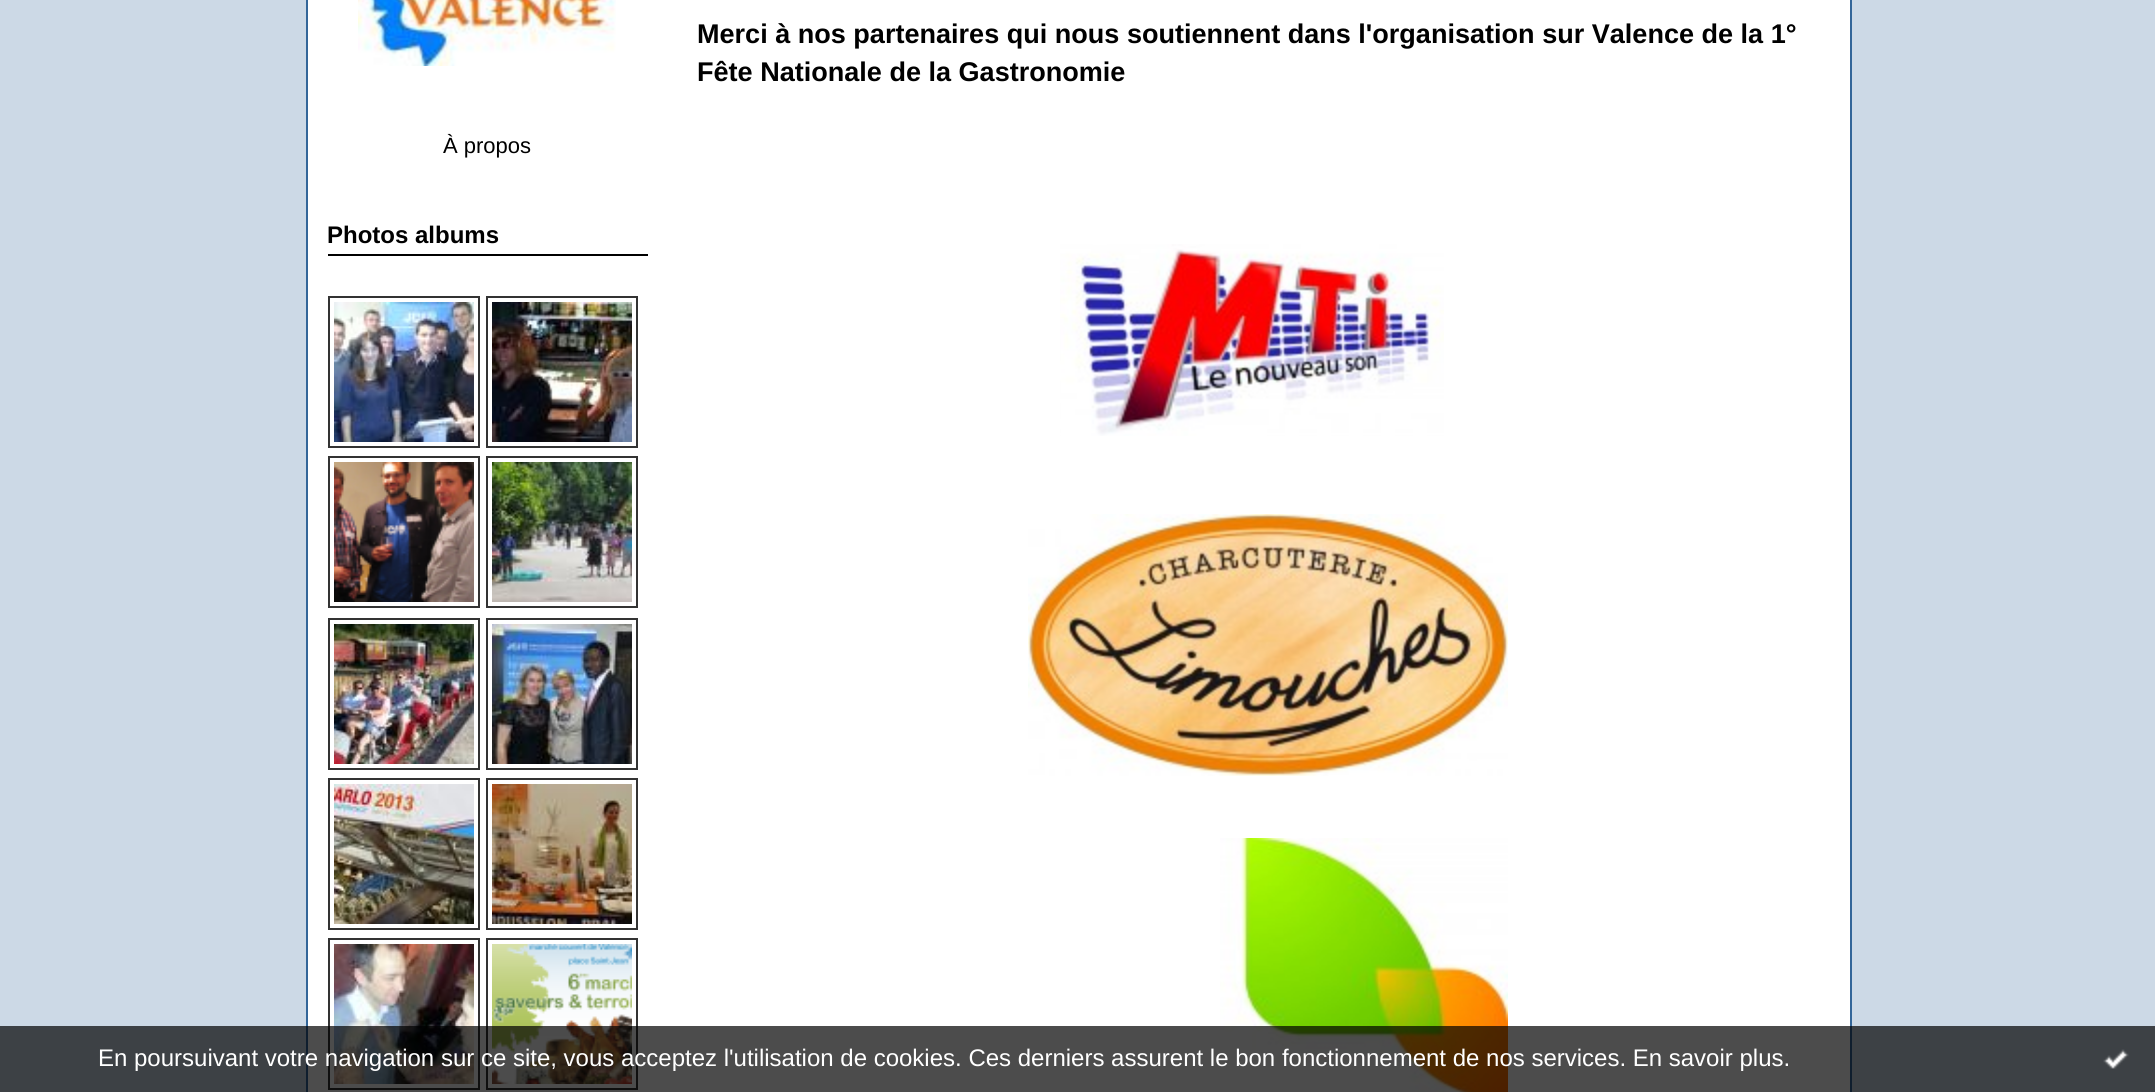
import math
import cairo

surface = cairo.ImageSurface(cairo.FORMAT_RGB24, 2155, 1092)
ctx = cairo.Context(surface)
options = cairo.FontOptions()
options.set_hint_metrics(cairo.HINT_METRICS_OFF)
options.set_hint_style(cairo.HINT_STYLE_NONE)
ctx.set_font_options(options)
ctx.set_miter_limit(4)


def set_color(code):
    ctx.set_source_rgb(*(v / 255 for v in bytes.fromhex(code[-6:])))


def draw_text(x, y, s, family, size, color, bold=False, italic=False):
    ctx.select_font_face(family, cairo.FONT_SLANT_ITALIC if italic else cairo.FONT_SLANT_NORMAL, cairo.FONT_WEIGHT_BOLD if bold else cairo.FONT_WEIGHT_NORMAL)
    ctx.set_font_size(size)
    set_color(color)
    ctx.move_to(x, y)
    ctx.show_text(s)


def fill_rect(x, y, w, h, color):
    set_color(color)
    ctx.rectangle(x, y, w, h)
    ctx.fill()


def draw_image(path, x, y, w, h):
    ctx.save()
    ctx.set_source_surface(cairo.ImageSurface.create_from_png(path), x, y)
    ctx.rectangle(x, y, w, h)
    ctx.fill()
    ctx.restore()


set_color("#ccd9e6")
ctx.paint()
set_color("#ffffff")
ctx.rectangle(307, -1, 1544, 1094)
ctx.fill_preserve()
set_color("#336699")
ctx.stroke()
draw_text(697, 43, "Merci à nos partenaires qui nous soutiennent dans l'organisation sur Valence de la 1°", "Liberation Sans", 27.05, "#000000", bold=True)
draw_text(697, 81, "Fête Nationale de la Gastronomie", "Liberation Sans", 27.05, "#000000", bold=True)
draw_image("assets/img1.png", 1060, 244, 384, 192)
draw_image("assets/img2.png", 1028, 514, 480, 262)
draw_image("assets/img3.png", 1220, 838, 288, 254)
draw_image("assets/img4.png", 358, 0, 258, 66)
draw_text(443, 153, "À propos", "Liberation Sans", 22, "#000000")
fill_rect(328, 254, 320, 2, "#000000")
draw_text(327, 243, "Photos albums", "Liberation Sans", 24, "#000000", bold=True)
ctx.rectangle(329, 297, 150, 150)
set_color("#333333")
ctx.stroke()
ctx.rectangle(487, 297, 150, 150)
ctx.stroke()
draw_image("assets/img5.png", 334, 302, 140, 140)
draw_image("assets/img6.png", 492, 302, 140, 140)
ctx.rectangle(329, 457, 150, 150)
ctx.stroke()
ctx.rectangle(487, 457, 150, 150)
ctx.stroke()
draw_image("assets/img7.png", 334, 462, 140, 140)
draw_image("assets/img8.png", 492, 462, 140, 140)
ctx.rectangle(329, 619, 150, 150)
ctx.stroke()
ctx.rectangle(487, 619, 150, 150)
ctx.stroke()
draw_image("assets/img9.png", 334, 624, 140, 140)
draw_image("assets/img10.png", 492, 624, 140, 140)
ctx.rectangle(329, 779, 150, 150)
ctx.stroke()
ctx.rectangle(487, 779, 150, 150)
ctx.stroke()
draw_image("assets/img11.png", 334, 784, 140, 140)
draw_image("assets/img12.png", 492, 784, 140, 140)
ctx.rectangle(329, 939, 150, 150)
ctx.stroke()
ctx.rectangle(487, 939, 150, 150)
ctx.stroke()
draw_image("assets/img13.png", 334, 944, 140, 140)
draw_image("assets/img14.png", 492, 944, 140, 140)
ctx.set_source_rgba(0, 0, 0, 0.7)
ctx.rectangle(0, 1026, 2155, 66)
ctx.fill()
draw_text(98, 1066, "En poursuivant votre navigation sur ce site, vous acceptez l'utilisation de cookies. Ces derniers assurent le bon fonctionnement de nos services. En savoir plus.", "Liberation Sans", 24, "#ffffff")
draw_image("assets/img15.png", 2103, 1049, 26, 20)
surface.write_to_png("output.png")
